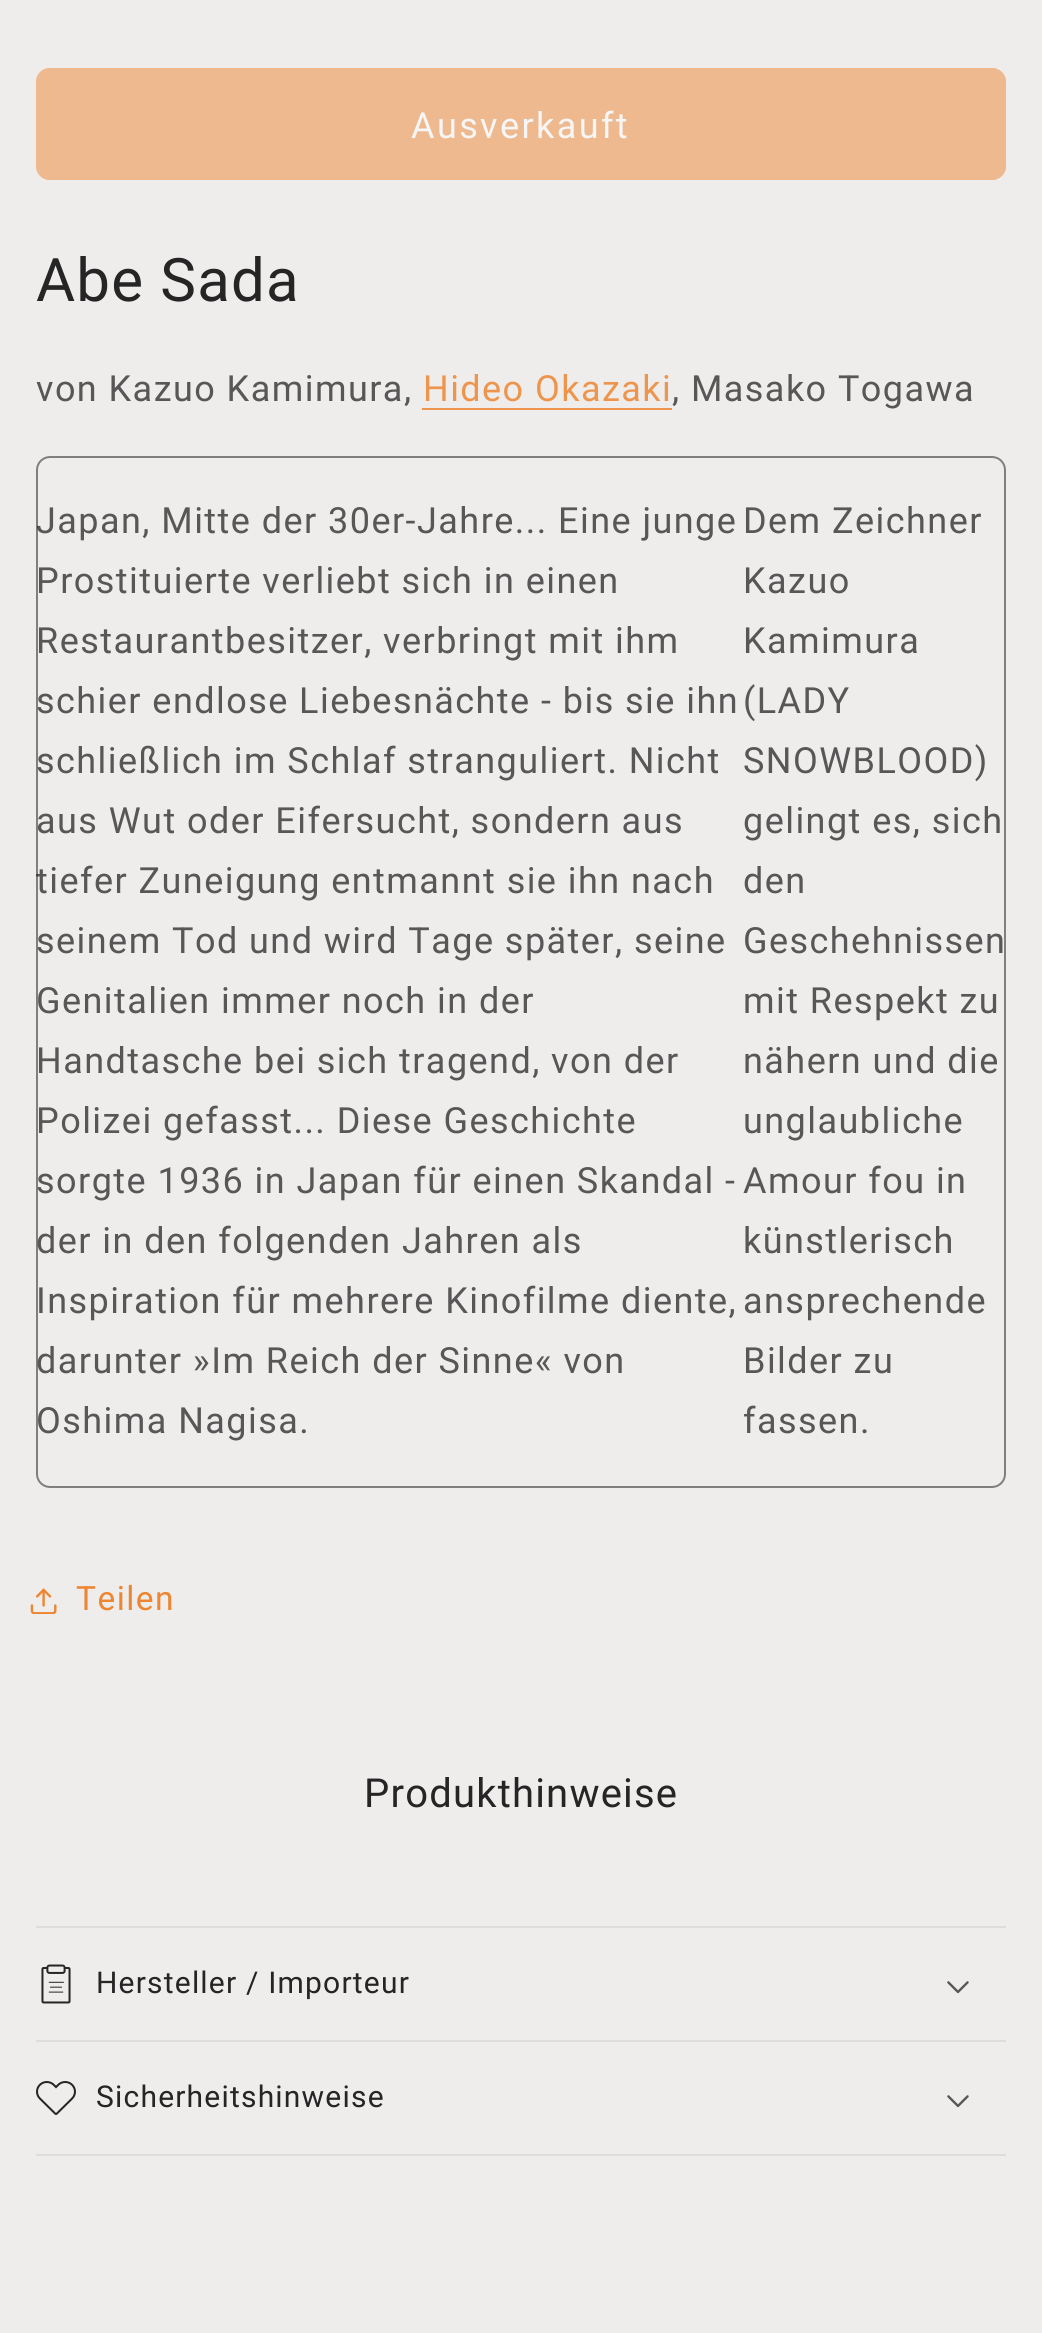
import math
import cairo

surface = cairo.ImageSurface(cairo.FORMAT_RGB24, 1042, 2333)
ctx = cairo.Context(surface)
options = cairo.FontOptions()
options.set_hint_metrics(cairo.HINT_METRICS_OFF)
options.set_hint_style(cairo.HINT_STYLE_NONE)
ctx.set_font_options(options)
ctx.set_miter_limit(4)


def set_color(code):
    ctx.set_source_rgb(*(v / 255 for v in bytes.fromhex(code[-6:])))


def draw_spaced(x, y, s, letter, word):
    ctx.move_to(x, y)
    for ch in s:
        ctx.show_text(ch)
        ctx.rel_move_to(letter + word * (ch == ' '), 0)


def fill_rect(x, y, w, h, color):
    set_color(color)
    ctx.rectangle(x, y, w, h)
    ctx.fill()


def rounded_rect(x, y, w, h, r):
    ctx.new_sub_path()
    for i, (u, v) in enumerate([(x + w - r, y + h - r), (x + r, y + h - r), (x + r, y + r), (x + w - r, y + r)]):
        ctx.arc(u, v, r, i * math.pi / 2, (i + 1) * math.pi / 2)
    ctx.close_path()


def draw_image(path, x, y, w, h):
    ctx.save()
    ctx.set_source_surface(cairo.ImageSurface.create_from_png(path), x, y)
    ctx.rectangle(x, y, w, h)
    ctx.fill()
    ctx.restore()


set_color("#efecec")
ctx.paint()
set_color("#eeb98f")
rounded_rect(36, 68, 970, 112, 14)
ctx.fill()
rounded_rect(37, 69, 968, 110, 13)
ctx.stroke()
ctx.select_font_face("Roboto")
ctx.set_font_size(36)
set_color("#f7f6f6")
draw_spaced(411, 138, "Ausverkauft", 2.4, 0)
ctx.set_font_size(60)
set_color("#252525")
draw_spaced(36, 301, "Abe Sada", 1.2, 0)
ctx.set_font_size(36)
set_color("#585757")
draw_spaced(36, 401, "von Kazuo Kamimura,", 1.45, 0)
set_color("#ed954d")
draw_spaced(423, 401, "Hideo Okazaki", 1.45, 0)
fill_rect(422, 408, 250, 2, "#ed954d")
set_color("#585757")
draw_spaced(672, 401, ", Masako Togawa", 1.45, 0)
draw_spaced(36, 533, "Japan, Mitte der 30er-Jahre... Eine junge", 1.45, 0)
draw_spaced(36, 713, "schier endlose Liebesnächte - bis sie ihn", 1.45, 0)
draw_spaced(36, 773, "schließlich im Schlaf stranguliert. Nicht", 1.45, 0)
draw_spaced(36, 833, "aus Wut oder Eifersucht, sondern aus", 1.45, 0)
draw_spaced(36, 893, "tiefer Zuneigung entmannt sie ihn nach", 1.45, 0)
draw_spaced(36, 953, "seinem Tod und wird Tage später, seine", 1.45, 0)
draw_spaced(36, 1193, "sorgte 1936 in Japan für einen Skandal -", 1.45, 0)
draw_spaced(36, 1253, "der in den folgenden Jahren als", 1.45, 0)
draw_spaced(36, 1373, "darunter »Im Reich der Sinne« von", 1.45, 0)
rounded_rect(37, 457, 968, 1030, 13)
ctx.set_source_rgba(0.145, 0.145, 0.145, 0.55)
ctx.stroke()
set_color("#585757")
draw_spaced(36, 593, "Prostituierte verliebt sich in einen", 1.45, 0)
draw_spaced(36, 653, "Restaurantbesitzer, verbringt mit ihm", 1.45, 0)
draw_spaced(36, 1013, "Genitalien immer noch in der", 1.45, 0)
draw_spaced(36, 1073, "Handtasche bei sich tragend, von der", 1.45, 0)
draw_spaced(36, 1133, "Polizei gefasst... Diese Geschichte", 1.45, 0)
draw_spaced(36, 1313, "Inspiration für mehrere Kinofilme diente,", 1.45, 0)
draw_spaced(36, 1433, "Oshima Nagisa.", 1.45, 0)
draw_spaced(743, 533, "Dem Zeichner", 1.45, 0)
draw_spaced(743, 593, "Kazuo", 1.45, 0)
draw_spaced(743, 653, "Kamimura", 1.45, 0)
draw_spaced(743, 713, "(LADY", 1.45, 0)
draw_spaced(743, 773, "SNOWBLOOD)", 1.45, 0)
draw_spaced(743, 833, "gelingt es, sich", 1.45, 0)
draw_spaced(743, 893, "den", 1.45, 0)
draw_spaced(743, 953, "Geschehnissen", 1.45, 0)
draw_spaced(743, 1013, "mit Respekt zu", 1.45, 0)
draw_spaced(743, 1073, "nähern und die", 1.45, 0)
draw_spaced(743, 1133, "unglaubliche", 1.45, 0)
draw_spaced(743, 1193, "Amour fou in", 1.45, 0)
draw_spaced(743, 1253, "künstlerisch", 1.45, 0)
draw_spaced(743, 1313, "ansprechende", 1.45, 0)
draw_spaced(743, 1373, "Bilder zu", 1.45, 0)
draw_spaced(743, 1433, "fassen.", 1.45, 0)
draw_image("assets/img1.png", 30, 1588, 27, 26)
ctx.set_font_size(33.5)
set_color("#ed8631")
draw_spaced(76, 1610, "Teilen", 1.45, 0)
ctx.set_font_size(40)
set_color("#252525")
draw_spaced(364, 1807, "Produkthinweise", 1.2, 0)
fill_rect(36, 1926, 970, 2, "#dfdcdc")
fill_rect(36, 2040, 970, 2, "#dfdcdc")
draw_image("assets/img2.png", 41, 1964, 30, 40)
ctx.set_font_size(30)
set_color("#252525")
draw_spaced(96, 1993, "Hersteller / Importeur", 1.2, 0)
draw_image("assets/img3.png", 947, 1981, 22, 13)
fill_rect(36, 2154, 970, 2, "#dfdcdc")
draw_image("assets/img4.png", 36, 2081, 40, 34)
set_color("#252525")
draw_spaced(96, 2107, "Sicherheitshinweise", 1.2, 0)
draw_image("assets/img3.png", 947, 2095, 22, 13)
surface.write_to_png("output.png")
